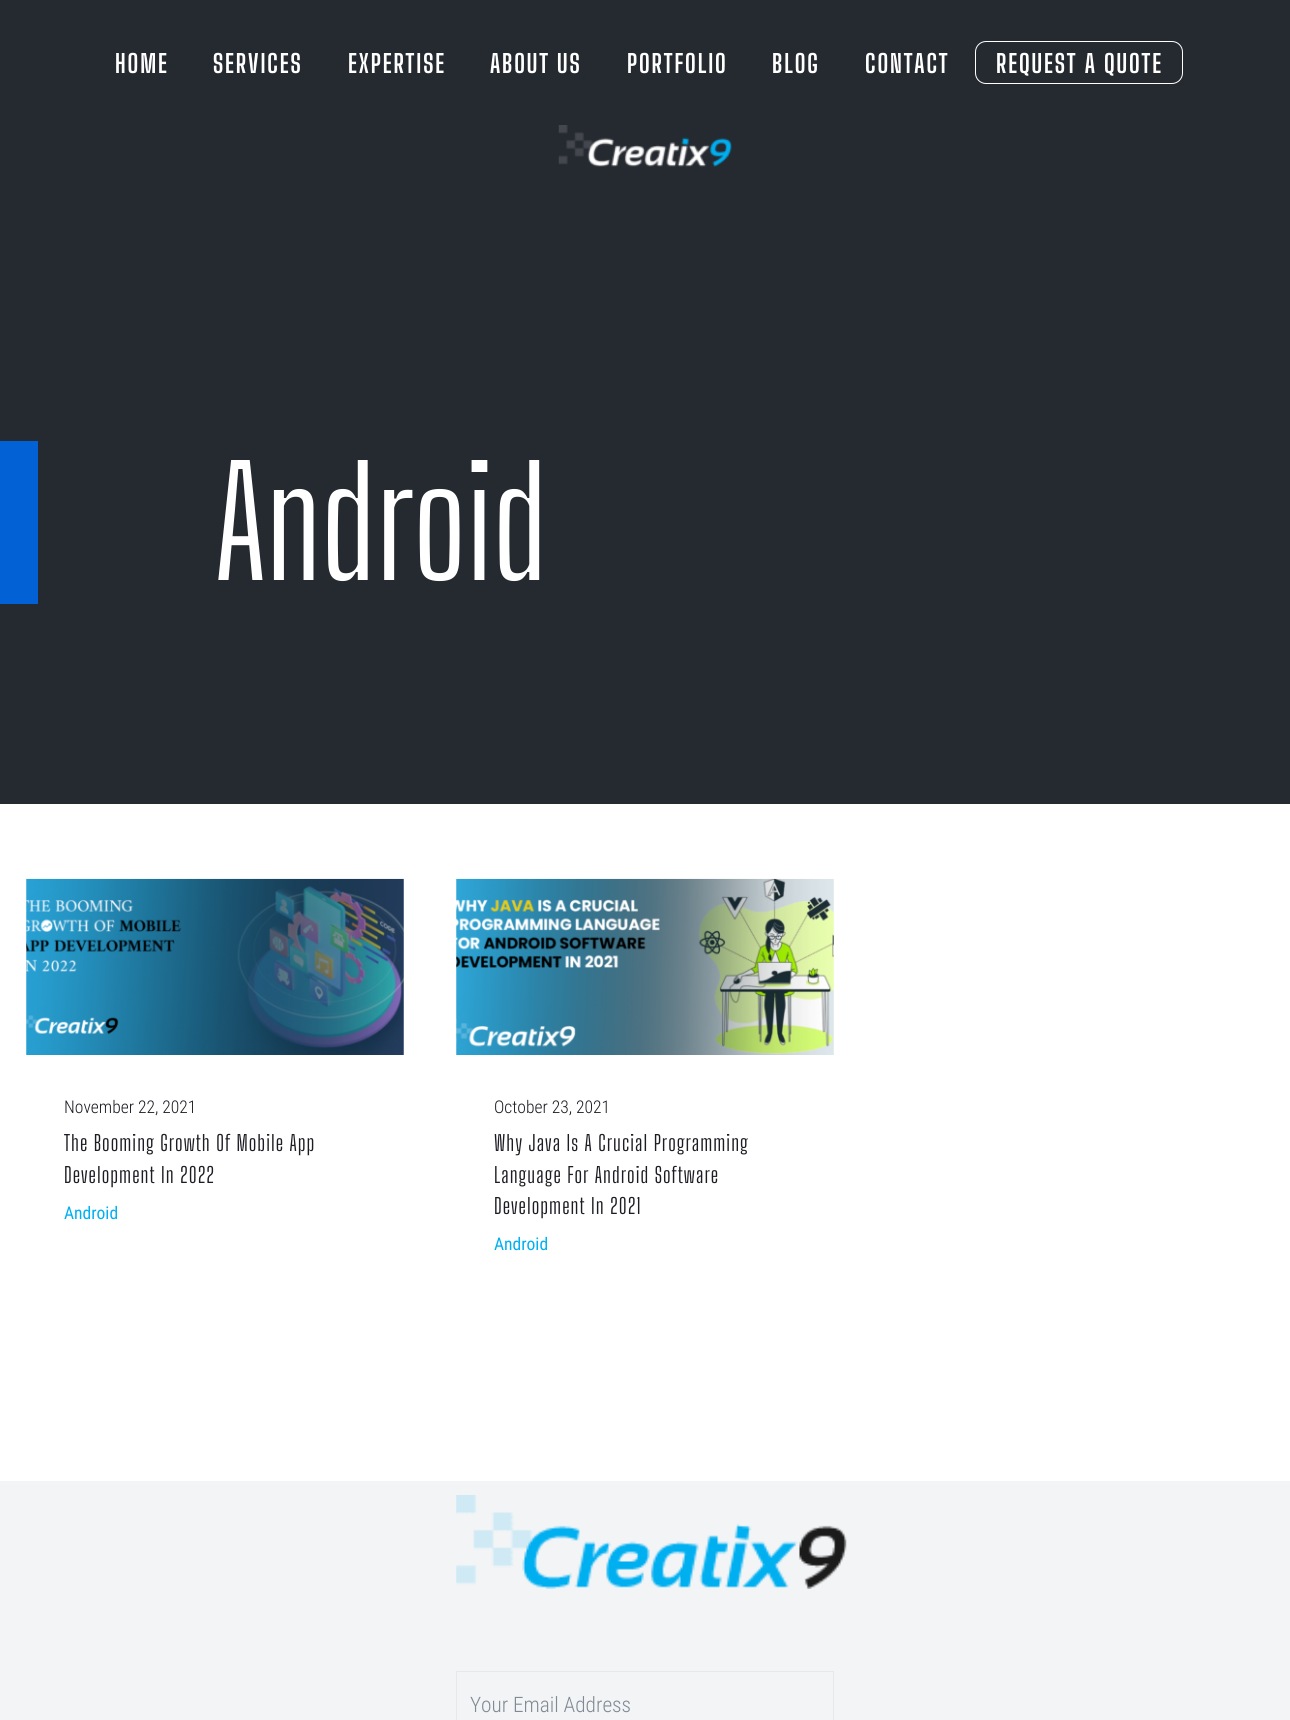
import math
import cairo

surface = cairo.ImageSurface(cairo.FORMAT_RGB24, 1290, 1720)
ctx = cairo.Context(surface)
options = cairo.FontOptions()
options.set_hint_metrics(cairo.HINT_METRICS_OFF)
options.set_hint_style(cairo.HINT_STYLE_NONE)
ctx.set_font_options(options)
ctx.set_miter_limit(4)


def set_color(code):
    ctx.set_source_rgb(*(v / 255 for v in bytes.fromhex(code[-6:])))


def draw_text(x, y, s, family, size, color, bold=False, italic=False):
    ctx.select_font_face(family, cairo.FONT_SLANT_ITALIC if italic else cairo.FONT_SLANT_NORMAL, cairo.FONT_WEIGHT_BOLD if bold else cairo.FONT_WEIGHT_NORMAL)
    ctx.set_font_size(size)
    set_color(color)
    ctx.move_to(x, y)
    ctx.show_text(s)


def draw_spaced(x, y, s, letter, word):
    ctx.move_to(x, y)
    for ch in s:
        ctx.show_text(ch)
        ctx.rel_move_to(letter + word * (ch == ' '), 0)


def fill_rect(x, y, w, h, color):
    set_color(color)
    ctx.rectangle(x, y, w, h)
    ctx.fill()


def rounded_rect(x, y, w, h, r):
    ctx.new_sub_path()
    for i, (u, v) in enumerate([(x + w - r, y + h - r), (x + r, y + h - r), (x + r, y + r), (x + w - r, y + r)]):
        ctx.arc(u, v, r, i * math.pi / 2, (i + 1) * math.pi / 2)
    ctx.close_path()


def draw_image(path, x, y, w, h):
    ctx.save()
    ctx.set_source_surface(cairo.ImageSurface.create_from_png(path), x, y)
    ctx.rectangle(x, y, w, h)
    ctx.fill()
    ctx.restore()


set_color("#252930")
ctx.paint()
ctx.select_font_face("Big Shoulders Display", cairo.FONT_SLANT_NORMAL, cairo.FONT_WEIGHT_BOLD)
ctx.set_font_size(25)
set_color("#ffffff")
draw_spaced(115, 73, "HOME", 1.9, 0)
draw_spaced(213, 73, "SERVICES", 1.9, 0)
draw_spaced(348, 73, "EXPERTISE", 1.9, 0)
draw_spaced(490, 73, "ABOUT US", 1.9, 0)
draw_spaced(627, 73, "PORTFOLIO", 1.9, 0)
draw_spaced(772, 73, "BLOG", 1.9, 0)
draw_spaced(865, 73, "CONTACT", 1.9, 0)
rounded_rect(975.5, 41.5, 207, 42, 10.5)
ctx.set_line_width(1)
ctx.stroke()
draw_spaced(996, 73, "REQUEST A QUOTE", 1.9, 0)
draw_image("assets/img1.png", 558, 125, 174, 42)
fill_rect(0, 441, 38, 163, "#0261d4")
draw_text(215, 580, "Android", "Big Shoulders Display", 150, "#ffffff")
fill_rect(0, 804, 1290, 677, "#ffffff")
draw_image("assets/img2.png", 26, 878, 378, 177)
draw_text(64, 1113, "November 22, 2021", "Roboto Condensed Light", 17.5, "#1c1c24")
ctx.select_font_face("Big Shoulders Display")
ctx.set_font_size(21.25)
draw_spaced(64, 1151, "The Booming Growth Of Mobile App", 1.05, 0)
draw_spaced(64, 1183, "Development In 2022", 1.05, 0)
draw_text(64, 1219, "Android", "Roboto Condensed", 17.5, "#00aff0")
draw_image("assets/img3.png", 456, 878, 378, 177)
draw_text(494, 1113, "October 23, 2021", "Roboto Condensed Light", 17.5, "#1c1c24")
ctx.select_font_face("Big Shoulders Display")
ctx.set_font_size(21.25)
draw_spaced(494, 1151, "Why Java Is A Crucial Programming", 1.05, 0)
draw_spaced(494, 1183, "Language For Android Software", 1.05, 0)
draw_spaced(494, 1214, "Development In 2021", 1.05, 0)
draw_text(494, 1250, "Android", "Roboto Condensed", 17.5, "#00aff0")
fill_rect(0, 1481, 1290, 239, "#f2f4f6")
draw_image("assets/img4.png", 456, 1495, 391, 94)
ctx.rectangle(456.5, 1671.5, 377, 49)
set_color("#e6e8ec")
ctx.stroke()
draw_text(470, 1712, "Your Email Address", "Roboto Condensed Light", 21.25, "#818a94")
surface.write_to_png("output.png")
